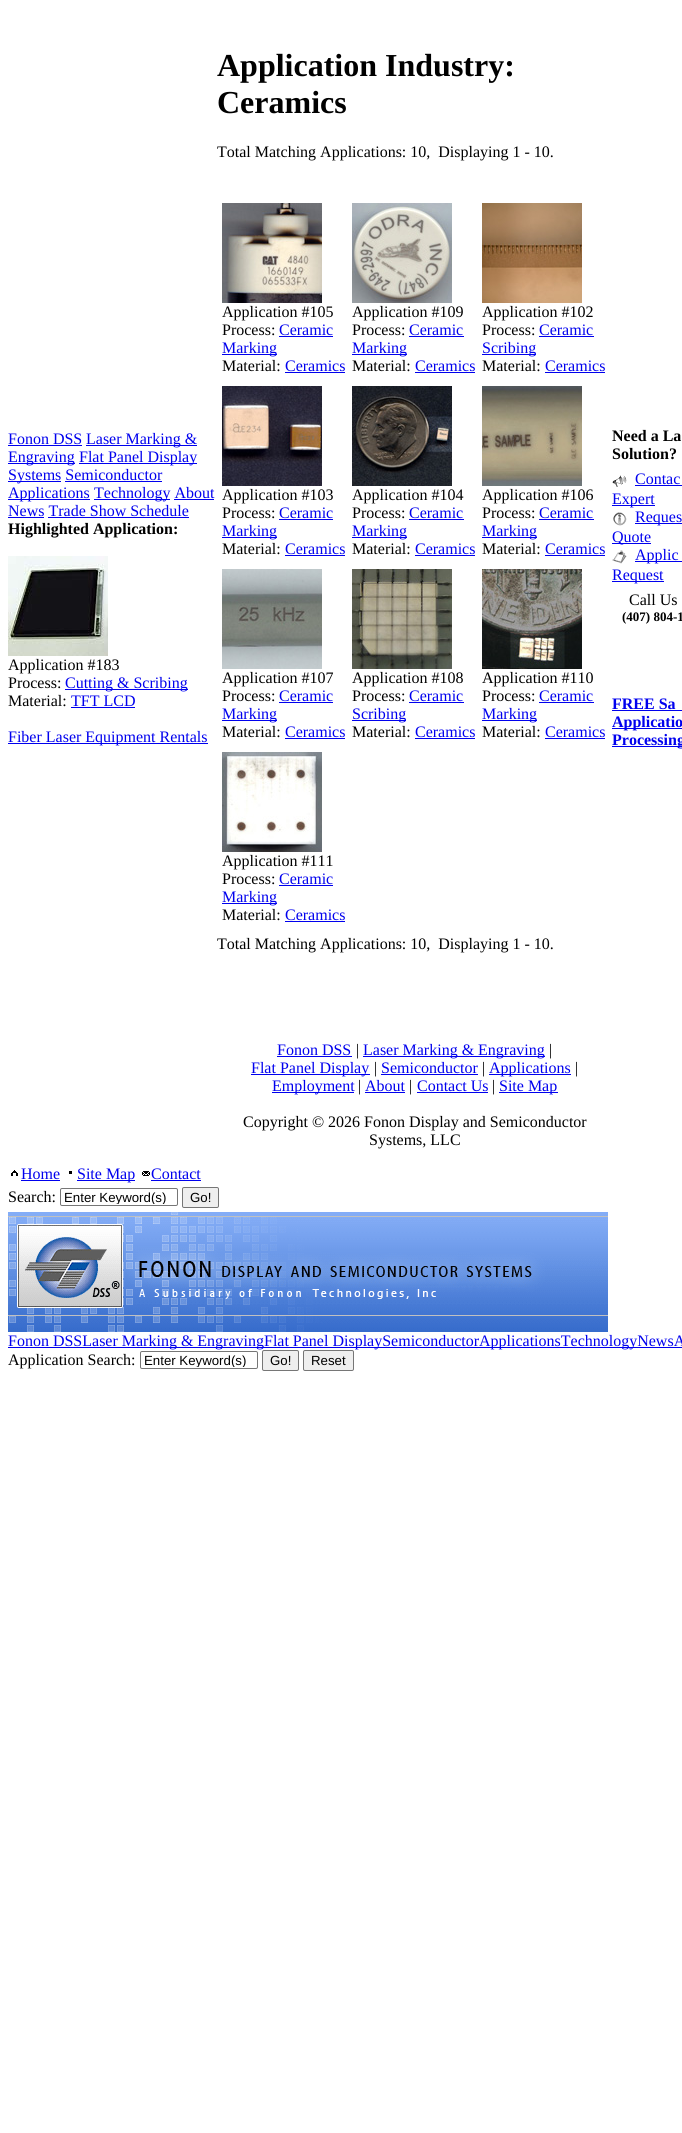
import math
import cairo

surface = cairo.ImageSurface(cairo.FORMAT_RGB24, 682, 2133)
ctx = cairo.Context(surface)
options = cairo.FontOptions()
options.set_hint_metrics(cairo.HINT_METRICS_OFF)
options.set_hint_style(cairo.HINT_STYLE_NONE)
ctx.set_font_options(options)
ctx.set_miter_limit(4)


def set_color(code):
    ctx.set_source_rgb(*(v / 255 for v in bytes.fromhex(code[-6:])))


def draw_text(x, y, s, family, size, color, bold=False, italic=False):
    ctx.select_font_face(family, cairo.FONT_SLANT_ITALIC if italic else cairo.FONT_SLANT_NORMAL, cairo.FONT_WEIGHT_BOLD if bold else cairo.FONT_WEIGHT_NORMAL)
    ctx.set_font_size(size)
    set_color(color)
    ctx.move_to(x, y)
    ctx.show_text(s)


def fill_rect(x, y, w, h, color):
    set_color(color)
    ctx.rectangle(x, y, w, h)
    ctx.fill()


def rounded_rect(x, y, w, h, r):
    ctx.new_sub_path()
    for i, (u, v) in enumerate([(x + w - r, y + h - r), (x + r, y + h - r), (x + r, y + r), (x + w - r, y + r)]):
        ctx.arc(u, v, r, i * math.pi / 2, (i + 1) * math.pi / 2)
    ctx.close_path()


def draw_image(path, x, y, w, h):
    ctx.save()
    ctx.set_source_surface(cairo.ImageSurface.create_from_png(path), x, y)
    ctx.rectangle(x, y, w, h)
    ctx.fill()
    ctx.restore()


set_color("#ffffff")
ctx.paint()
draw_text(217, 76, "Application Industry:", "Liberation Serif", 32, "#000000", bold=True)
draw_text(217, 113, "Ceramics", "Liberation Serif", 32, "#000000", bold=True)
draw_text(217, 157, "Total Matching Applications: 10,  Displaying 1 - 10.", "Liberation Serif", 16, "#000000")
draw_image("assets/img1.png", 222, 203, 100, 100)
draw_text(222, 317, "Application #105", "Liberation Serif", 16, "#000000")
draw_text(222, 335, "Process:", "Liberation Serif", 16, "#000000")
draw_text(279, 335, "Ceramic", "Liberation Serif", 16, "#0000ee")
fill_rect(279, 336, 54, 1, "#0000ee")
fill_rect(222, 354, 55, 1, "#0000ee")
draw_text(222, 353, "Marking", "Liberation Serif", 16, "#0000ee")
draw_text(222, 371, "Material:", "Liberation Serif", 16, "#000000")
draw_text(285, 371, "Ceramics", "Liberation Serif", 16, "#0000ee")
fill_rect(285, 372, 60, 1, "#0000ee")
draw_image("assets/img2.png", 352, 203, 100, 100)
draw_text(352, 317, "Application #109", "Liberation Serif", 16, "#000000")
draw_text(352, 335, "Process:", "Liberation Serif", 16, "#000000")
draw_text(409, 335, "Ceramic", "Liberation Serif", 16, "#0000ee")
fill_rect(409, 336, 55, 1, "#0000ee")
fill_rect(352, 354, 55, 1, "#0000ee")
draw_text(352, 353, "Marking", "Liberation Serif", 16, "#0000ee")
draw_text(352, 371, "Material:", "Liberation Serif", 16, "#000000")
draw_text(415, 371, "Ceramics", "Liberation Serif", 16, "#0000ee")
fill_rect(415, 372, 60, 1, "#0000ee")
draw_image("assets/img3.png", 482, 203, 100, 100)
draw_text(482, 317, "Application #102", "Liberation Serif", 16, "#000000")
draw_text(482, 335, "Process:", "Liberation Serif", 16, "#000000")
draw_text(539, 335, "Ceramic", "Liberation Serif", 16, "#0000ee")
fill_rect(539, 336, 55, 1, "#0000ee")
fill_rect(482, 354, 54, 1, "#0000ee")
draw_text(482, 353, "Scribing", "Liberation Serif", 16, "#0000ee")
draw_text(482, 371, "Material:", "Liberation Serif", 16, "#000000")
draw_text(545, 371, "Ceramics", "Liberation Serif", 16, "#0000ee")
fill_rect(545, 372, 60, 1, "#0000ee")
draw_image("assets/img4.png", 222, 386, 100, 100)
draw_text(222, 500, "Application #103", "Liberation Serif", 16, "#000000")
draw_text(222, 518, "Process:", "Liberation Serif", 16, "#000000")
draw_text(279, 518, "Ceramic", "Liberation Serif", 16, "#0000ee")
fill_rect(279, 519, 54, 1, "#0000ee")
fill_rect(222, 537, 55, 1, "#0000ee")
draw_text(222, 536, "Marking", "Liberation Serif", 16, "#0000ee")
draw_text(222, 554, "Material:", "Liberation Serif", 16, "#000000")
draw_text(285, 554, "Ceramics", "Liberation Serif", 16, "#0000ee")
fill_rect(285, 555, 60, 1, "#0000ee")
draw_image("assets/img5.png", 352, 386, 100, 100)
draw_text(352, 500, "Application #104", "Liberation Serif", 16, "#000000")
draw_text(352, 518, "Process:", "Liberation Serif", 16, "#000000")
draw_text(409, 518, "Ceramic", "Liberation Serif", 16, "#0000ee")
fill_rect(409, 519, 55, 1, "#0000ee")
fill_rect(352, 537, 55, 1, "#0000ee")
draw_text(352, 536, "Marking", "Liberation Serif", 16, "#0000ee")
draw_text(352, 554, "Material:", "Liberation Serif", 16, "#000000")
draw_text(415, 554, "Ceramics", "Liberation Serif", 16, "#0000ee")
fill_rect(415, 555, 60, 1, "#0000ee")
draw_image("assets/img6.png", 482, 386, 100, 100)
draw_text(482, 500, "Application #106", "Liberation Serif", 16, "#000000")
draw_text(482, 518, "Process:", "Liberation Serif", 16, "#000000")
draw_text(539, 518, "Ceramic", "Liberation Serif", 16, "#0000ee")
fill_rect(539, 519, 55, 1, "#0000ee")
fill_rect(482, 537, 55, 1, "#0000ee")
draw_text(482, 536, "Marking", "Liberation Serif", 16, "#0000ee")
draw_text(482, 554, "Material:", "Liberation Serif", 16, "#000000")
draw_text(545, 554, "Ceramics", "Liberation Serif", 16, "#0000ee")
fill_rect(545, 555, 60, 1, "#0000ee")
draw_image("assets/img7.png", 222, 569, 100, 100)
draw_text(222, 683, "Application #107", "Liberation Serif", 16, "#000000")
draw_text(222, 701, "Process:", "Liberation Serif", 16, "#000000")
draw_text(279, 701, "Ceramic", "Liberation Serif", 16, "#0000ee")
fill_rect(279, 702, 54, 1, "#0000ee")
fill_rect(222, 720, 55, 1, "#0000ee")
draw_text(222, 719, "Marking", "Liberation Serif", 16, "#0000ee")
draw_text(222, 737, "Material:", "Liberation Serif", 16, "#000000")
draw_text(285, 737, "Ceramics", "Liberation Serif", 16, "#0000ee")
fill_rect(285, 738, 60, 1, "#0000ee")
draw_image("assets/img8.png", 352, 569, 100, 100)
draw_text(352, 683, "Application #108", "Liberation Serif", 16, "#000000")
draw_text(352, 701, "Process:", "Liberation Serif", 16, "#000000")
draw_text(409, 701, "Ceramic", "Liberation Serif", 16, "#0000ee")
fill_rect(409, 702, 55, 1, "#0000ee")
fill_rect(352, 720, 54, 1, "#0000ee")
draw_text(352, 719, "Scribing", "Liberation Serif", 16, "#0000ee")
draw_text(352, 737, "Material:", "Liberation Serif", 16, "#000000")
draw_text(415, 737, "Ceramics", "Liberation Serif", 16, "#0000ee")
fill_rect(415, 738, 60, 1, "#0000ee")
draw_image("assets/img9.png", 482, 569, 100, 100)
draw_text(482, 683, "Application #110", "Liberation Serif", 16, "#000000")
draw_text(482, 701, "Process:", "Liberation Serif", 16, "#000000")
draw_text(539, 701, "Ceramic", "Liberation Serif", 16, "#0000ee")
fill_rect(539, 702, 55, 1, "#0000ee")
fill_rect(482, 720, 55, 1, "#0000ee")
draw_text(482, 719, "Marking", "Liberation Serif", 16, "#0000ee")
draw_text(482, 737, "Material:", "Liberation Serif", 16, "#000000")
draw_text(545, 737, "Ceramics", "Liberation Serif", 16, "#0000ee")
fill_rect(545, 738, 60, 1, "#0000ee")
draw_image("assets/img10.png", 222, 752, 100, 100)
draw_text(222, 866, "Application #111", "Liberation Serif", 16, "#000000")
draw_text(222, 884, "Process:", "Liberation Serif", 16, "#000000")
draw_text(279, 884, "Ceramic", "Liberation Serif", 16, "#0000ee")
fill_rect(279, 885, 54, 1, "#0000ee")
fill_rect(222, 903, 55, 1, "#0000ee")
draw_text(222, 902, "Marking", "Liberation Serif", 16, "#0000ee")
draw_text(222, 920, "Material:", "Liberation Serif", 16, "#000000")
draw_text(285, 920, "Ceramics", "Liberation Serif", 16, "#0000ee")
fill_rect(285, 921, 60, 1, "#0000ee")
draw_text(217, 949, "Total Matching Applications: 10,  Displaying 1 - 10.", "Liberation Serif", 16, "#000000")
draw_text(277, 1055, "Fonon DSS", "Liberation Serif", 16, "#0000ee")
fill_rect(277, 1056, 75, 1, "#0000ee")
draw_text(356, 1055, "|", "Liberation Serif", 16, "#000000")
fill_rect(363, 1056, 182, 1, "#0000ee")
draw_text(363, 1055, "Laser Marking & Engraving", "Liberation Serif", 16, "#0000ee")
draw_text(549, 1055, "|", "Liberation Serif", 16, "#000000")
fill_rect(251, 1074, 119, 1, "#0000ee")
draw_text(251, 1073, "Flat Panel Display", "Liberation Serif", 16, "#0000ee")
draw_text(374, 1073, "|", "Liberation Serif", 16, "#000000")
draw_text(381, 1073, "Semiconductor", "Liberation Serif", 16, "#0000ee")
fill_rect(381, 1074, 97, 1, "#0000ee")
draw_text(482, 1073, "|", "Liberation Serif", 16, "#000000")
fill_rect(489, 1074, 82, 1, "#0000ee")
draw_text(489, 1073, "Applications", "Liberation Serif", 16, "#0000ee")
draw_text(575, 1073, "|", "Liberation Serif", 16, "#000000")
fill_rect(272, 1092, 82, 1, "#0000ee")
draw_text(272, 1091, "Employment", "Liberation Serif", 16, "#0000ee")
draw_text(358, 1091, "|", "Liberation Serif", 16, "#000000")
draw_text(365, 1091, "About", "Liberation Serif", 16, "#0000ee")
fill_rect(365, 1092, 40, 1, "#0000ee")
draw_text(409, 1091, "|", "Liberation Serif", 16, "#000000")
draw_text(417, 1091, "Contact Us", "Liberation Serif", 16, "#0000ee")
fill_rect(417, 1092, 71, 1, "#0000ee")
draw_text(492, 1091, "|", "Liberation Serif", 16, "#000000")
fill_rect(499, 1092, 59, 1, "#0000ee")
draw_text(499, 1091, "Site Map", "Liberation Serif", 16, "#0000ee")
draw_text(243, 1127, "Copyright © 2026 Fonon Display and Semiconductor", "Liberation Serif", 16, "#000000")
draw_text(369, 1145, "Systems, LLC", "Liberation Serif", 16, "#000000")
draw_text(8, 444, "Fonon DSS", "Liberation Serif", 16, "#0000ee")
fill_rect(8, 445, 74, 1, "#0000ee")
fill_rect(86, 445, 111, 1, "#0000ee")
draw_text(86, 444, "Laser Marking &", "Liberation Serif", 16, "#0000ee")
fill_rect(8, 463, 67, 1, "#0000ee")
draw_text(8, 462, "Engraving", "Liberation Serif", 16, "#0000ee")
fill_rect(79, 463, 118, 1, "#0000ee")
draw_text(79, 462, "Flat Panel Display", "Liberation Serif", 16, "#0000ee")
fill_rect(8, 481, 53, 1, "#0000ee")
draw_text(8, 480, "Systems Semiconductor", "Liberation Serif", 16, "#0000ee")
fill_rect(65, 481, 97, 1, "#0000ee")
fill_rect(8, 499, 82, 1, "#0000ee")
draw_text(8, 498, "Applications", "Liberation Serif", 16, "#0000ee")
fill_rect(94, 499, 76, 1, "#0000ee")
draw_text(94, 498, "Technology About", "Liberation Serif", 16, "#0000ee")
fill_rect(174, 499, 40, 1, "#0000ee")
draw_text(8, 516, "News Trade Show Schedule", "Liberation Serif", 16, "#0000ee")
fill_rect(8, 517, 36, 1, "#0000ee")
fill_rect(48, 517, 141, 1, "#0000ee")
draw_text(8, 534, "Highlighted Application:", "Liberation Serif", 16, "#000000", bold=True)
draw_image("assets/img11.png", 8, 556, 100, 100)
draw_text(8, 670, "Application #183", "Liberation Serif", 16, "#000000")
draw_text(8, 688, "Process:", "Liberation Serif", 16, "#000000")
fill_rect(65, 689, 123, 1, "#0000ee")
draw_text(65, 688, "Cutting & Scribing", "Liberation Serif", 16, "#0000ee")
draw_text(8, 706, "Material:", "Liberation Serif", 16, "#000000")
draw_text(71, 706, "TFT LCD", "Liberation Serif", 16, "#0000ee")
fill_rect(71, 707, 64, 1, "#0000ee")
fill_rect(8, 743, 200, 1, "#0000ee")
draw_text(8, 742, "Fiber Laser Equipment Rentals", "Liberation Serif", 16, "#0000ee")
draw_text(612, 441, "Need a La", "Liberation Serif", 16, "#000000", bold=True)
draw_text(612, 459, "Solution?", "Liberation Serif", 16, "#000000", bold=True)
draw_image("assets/img12.png", 612, 475, 15, 12)
draw_text(635, 484, "Contac", "Liberation Serif", 16, "#0000ee")
fill_rect(635, 485, 47, 1, "#0000ee")
fill_rect(612, 505, 43, 1, "#0000ee")
draw_text(612, 504, "Expert", "Liberation Serif", 16, "#0000ee")
draw_image("assets/img13.png", 613, 512, 14, 14)
fill_rect(635, 523, 47, 1, "#0000ee")
draw_text(635, 522, "Reques", "Liberation Serif", 16, "#0000ee")
fill_rect(612, 543, 39, 1, "#0000ee")
draw_text(612, 542, "Quote", "Liberation Serif", 16, "#0000ee")
draw_image("assets/img14.png", 612, 550, 15, 14)
fill_rect(635, 561, 47, 1, "#0000ee")
draw_text(635, 560, "Applic", "Liberation Serif", 16, "#0000ee")
fill_rect(612, 581, 52, 1, "#0000ee")
draw_text(612, 580, "Request", "Liberation Serif", 16, "#0000ee")
draw_text(629, 605, "Call Us", "Liberation Serif", 16, "#000000")
draw_text(622, 621, "(407) 804-1", "Liberation Serif", 13, "#000000", bold=True)
draw_text(612, 709, "FREE Sa", "Liberation Serif", 16, "#0000ee", bold=True)
fill_rect(612, 710, 70, 1, "#0000ee")
fill_rect(612, 728, 70, 1, "#0000ee")
draw_text(612, 727, "Applicatio", "Liberation Serif", 16, "#0000ee", bold=True)
fill_rect(612, 746, 70, 1, "#0000ee")
draw_text(612, 745, "Processing", "Liberation Serif", 16, "#0000ee", bold=True)
draw_image("assets/img15.png", 11, 1170, 7, 6)
draw_text(21, 1179, "Home", "Liberation Serif", 16, "#0000ee")
fill_rect(21, 1180, 39, 1, "#0000ee")
fill_rect(77, 1180, 58, 1, "#0000ee")
draw_text(77, 1179, "Site Map", "Liberation Serif", 16, "#0000ee")
fill_rect(69, 1171, 3, 3, "#000000")
draw_image("assets/img16.png", 142, 1171, 8, 5)
draw_text(151, 1179, "Contact", "Liberation Serif", 16, "#0000ee")
fill_rect(151, 1180, 50, 1, "#0000ee")
draw_text(8, 1202, "Search:", "Liberation Serif", 16, "#000000")
rounded_rect(60.5, 1188.5, 117, 17, 1.5)
set_color("#767676")
ctx.set_line_width(1)
ctx.stroke()
ctx.save()
ctx.rectangle(64, 1190, 110, 14)
ctx.clip()
draw_text(64, 1202, "Enter Keyword(s)", "Liberation Sans", 13.25, "#000000")
ctx.restore()
set_color("#efefef")
rounded_rect(182.5, 1187.5, 36, 20, 1.5)
ctx.fill_preserve()
set_color("#767676")
ctx.stroke()
draw_text(190, 1202, "Go!", "Liberation Sans", 13.25, "#000000")
draw_image("assets/img17.png", 8, 1212, 600, 120)
fill_rect(8, 1347, 374, 1, "#0000ee")
draw_text(8, 1346, "Fonon DSSLaser Marking & EngravingFlat Panel DisplaySemiconductor", "Liberation Serif", 16, "#0000ee")
fill_rect(382, 1347, 255, 1, "#0000ee")
draw_text(479, 1346, "ApplicationsTechnologyNewsA", "Liberation Serif", 16, "#0000ee")
fill_rect(637, 1347, 45, 1, "#0000ee")
draw_text(8, 1365, "Application Search:", "Liberation Serif", 16, "#000000")
rounded_rect(140.5, 1351.5, 117, 17, 1.5)
set_color("#767676")
ctx.stroke()
ctx.save()
ctx.rectangle(144, 1353, 110, 14)
ctx.clip()
draw_text(144, 1365, "Enter Keyword(s)", "Liberation Sans", 13.25, "#000000")
ctx.restore()
set_color("#efefef")
rounded_rect(262.5, 1350.5, 36, 20, 1.5)
ctx.fill_preserve()
set_color("#767676")
ctx.stroke()
draw_text(270, 1365, "Go!", "Liberation Sans", 13.25, "#000000")
set_color("#efefef")
rounded_rect(303.5, 1350.5, 50, 20, 1.5)
ctx.fill_preserve()
set_color("#767676")
ctx.stroke()
draw_text(311, 1365, "Reset", "Liberation Sans", 13.25, "#000000")
surface.write_to_png("output.png")
